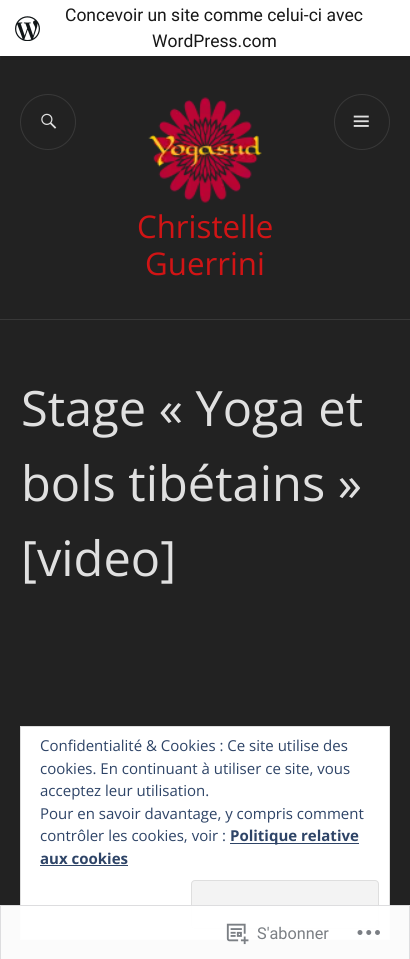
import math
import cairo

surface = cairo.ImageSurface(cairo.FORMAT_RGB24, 410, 959)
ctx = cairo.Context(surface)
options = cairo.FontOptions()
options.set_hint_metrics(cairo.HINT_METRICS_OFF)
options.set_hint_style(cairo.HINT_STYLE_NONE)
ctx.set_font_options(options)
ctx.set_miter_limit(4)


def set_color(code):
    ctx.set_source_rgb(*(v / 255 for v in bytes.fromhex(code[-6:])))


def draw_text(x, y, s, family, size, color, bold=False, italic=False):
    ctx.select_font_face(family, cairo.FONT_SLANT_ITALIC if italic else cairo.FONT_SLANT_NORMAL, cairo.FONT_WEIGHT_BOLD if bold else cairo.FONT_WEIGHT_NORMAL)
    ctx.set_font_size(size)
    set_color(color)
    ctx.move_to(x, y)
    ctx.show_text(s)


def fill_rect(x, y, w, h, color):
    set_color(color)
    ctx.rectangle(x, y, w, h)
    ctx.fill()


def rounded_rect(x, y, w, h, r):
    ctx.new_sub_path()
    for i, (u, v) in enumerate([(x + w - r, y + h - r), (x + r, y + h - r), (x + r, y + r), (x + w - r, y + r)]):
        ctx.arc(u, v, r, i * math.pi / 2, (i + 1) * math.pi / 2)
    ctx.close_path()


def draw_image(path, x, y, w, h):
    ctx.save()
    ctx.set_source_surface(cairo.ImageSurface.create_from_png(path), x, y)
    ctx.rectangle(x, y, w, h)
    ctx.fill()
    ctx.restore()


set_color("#222222")
ctx.paint()
set_color("#1f1f1f")
ctx.new_path()
ctx.move_to(1, 56)
ctx.line_to(1, 60)
ctx.line_to(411, 60)
ctx.line_to(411, 4)
ctx.line_to(410, 4)
ctx.line_to(410, 56)
ctx.close_path()
ctx.fill()
fill_rect(0, 0, 410, 56, "#ffffff")
draw_text(65, 21, "Concevoir un site comme celui-ci avec", "Roboto", 17.5, "#171717")
draw_image("assets/img1.png", 15, 16, 25, 25)
draw_text(152, 47, "WordPress.com", "Roboto", 17.5, "#171717")
fill_rect(0, 319, 410, 1, "#383838")
ctx.new_path()
ctx.arc(48, 122, 27.5, 0, 2 * math.pi)
ctx.set_line_width(1)
ctx.stroke()
draw_image("assets/img2.png", 41, 113, 16, 16)
ctx.arc(362, 122, 27.5, 0, 2 * math.pi)
ctx.stroke()
draw_image("assets/img3.png", 353, 115, 16, 12)
draw_image("assets/img4.png", 148, 97, 114, 106)
draw_text(137, 238, "Christelle", "Open Sans", 31.25, "#d11415")
draw_text(145, 275, "Guerrini", "Open Sans", 31.25, "#d11415")
draw_text(21, 426, "Stage « Yoga et", "Open Sans", 48.75, "#e0e0e0")
draw_text(21, 501, "bols tibétains »", "Open Sans", 48.75, "#e0e0e0")
draw_text(21, 576, "[video]", "Open Sans", 48.75, "#e0e0e0")
set_color("#ffffff")
ctx.rectangle(20.5, 726.5, 369, 213)
ctx.fill_preserve()
set_color("#dedede")
ctx.stroke()
draw_text(40, 751, "Confidentialité & Cookies : Ce site utilise des", "Open Sans", 15, "#2e4467")
draw_text(40, 774, "cookies. En continuant à utiliser ce site, vous", "Open Sans", 15, "#2e4467")
draw_text(40, 796, "acceptez leur utilisation.", "Open Sans", 15, "#2e4467")
draw_text(40, 819, "Pour en savoir davantage, y compris comment", "Open Sans", 15, "#2e4467")
draw_text(40, 841, "contrôler les cookies, voir :", "Open Sans", 15, "#2e4467")
fill_rect(230, 843, 129, 1, "#2e4467")
draw_text(230, 841, "Politique relative", "Open Sans", 15, "#2e4467", bold=True)
draw_text(40, 864, "aux cookies", "Open Sans", 15, "#2e4467", bold=True)
fill_rect(40, 865, 88, 1, "#2e4467")
set_color("#f3f3f3")
rounded_rect(191.5, 880.5, 187, 48, 3.5)
ctx.fill_preserve()
set_color("#dedede")
ctx.stroke()
ctx.set_source_rgba(1, 1, 1, 0.98)
ctx.rectangle(0, 905, 410, 54)
ctx.fill()
ctx.rectangle(0.5, 905.5, 409, 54)
ctx.set_source_rgba(0.863, 0.863, 0.871, 0.98)
ctx.stroke()
draw_image("assets/img5.png", 226, 923, 23, 22)
draw_text(257, 939, "S'abonner", "Roboto", 16.25, "#7b7f84")
draw_image("assets/img6.png", 357, 930, 23, 5)
surface.write_to_png("output.png")
